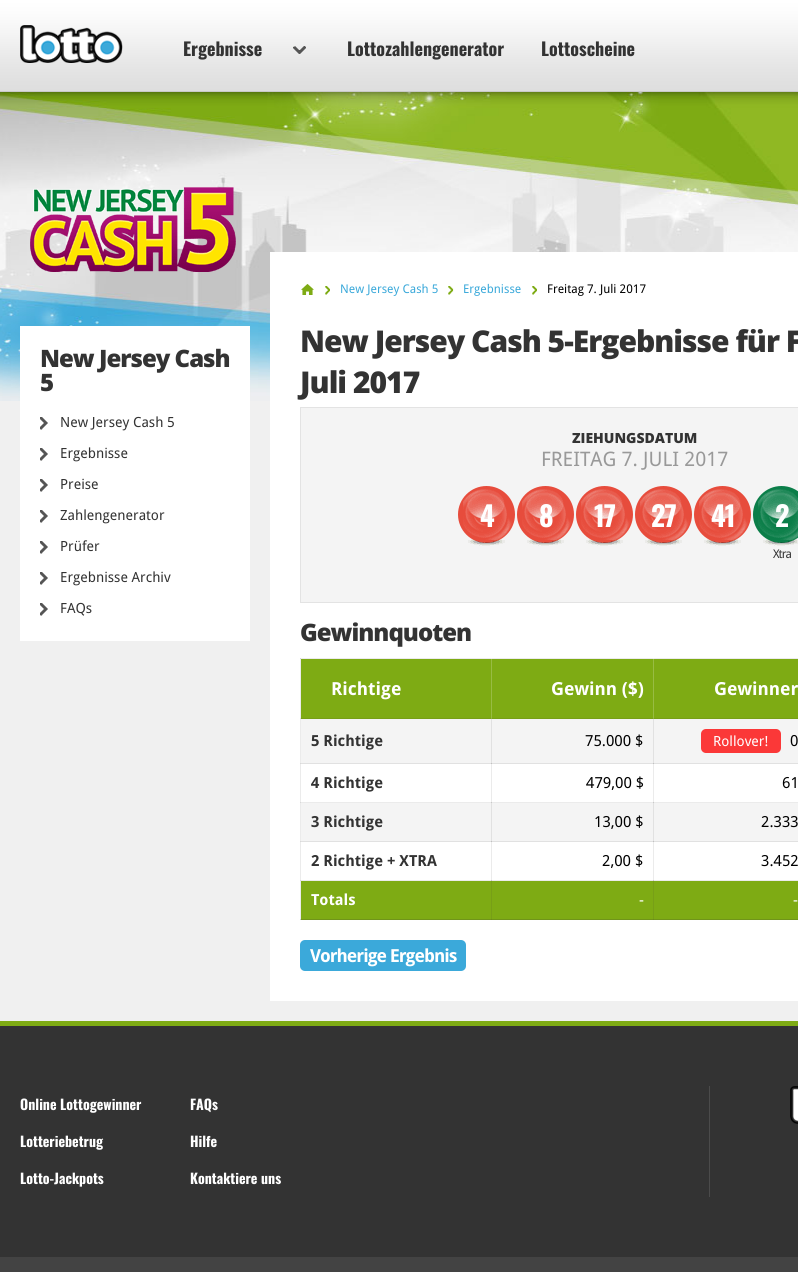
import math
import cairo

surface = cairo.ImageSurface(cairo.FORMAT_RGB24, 798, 1272)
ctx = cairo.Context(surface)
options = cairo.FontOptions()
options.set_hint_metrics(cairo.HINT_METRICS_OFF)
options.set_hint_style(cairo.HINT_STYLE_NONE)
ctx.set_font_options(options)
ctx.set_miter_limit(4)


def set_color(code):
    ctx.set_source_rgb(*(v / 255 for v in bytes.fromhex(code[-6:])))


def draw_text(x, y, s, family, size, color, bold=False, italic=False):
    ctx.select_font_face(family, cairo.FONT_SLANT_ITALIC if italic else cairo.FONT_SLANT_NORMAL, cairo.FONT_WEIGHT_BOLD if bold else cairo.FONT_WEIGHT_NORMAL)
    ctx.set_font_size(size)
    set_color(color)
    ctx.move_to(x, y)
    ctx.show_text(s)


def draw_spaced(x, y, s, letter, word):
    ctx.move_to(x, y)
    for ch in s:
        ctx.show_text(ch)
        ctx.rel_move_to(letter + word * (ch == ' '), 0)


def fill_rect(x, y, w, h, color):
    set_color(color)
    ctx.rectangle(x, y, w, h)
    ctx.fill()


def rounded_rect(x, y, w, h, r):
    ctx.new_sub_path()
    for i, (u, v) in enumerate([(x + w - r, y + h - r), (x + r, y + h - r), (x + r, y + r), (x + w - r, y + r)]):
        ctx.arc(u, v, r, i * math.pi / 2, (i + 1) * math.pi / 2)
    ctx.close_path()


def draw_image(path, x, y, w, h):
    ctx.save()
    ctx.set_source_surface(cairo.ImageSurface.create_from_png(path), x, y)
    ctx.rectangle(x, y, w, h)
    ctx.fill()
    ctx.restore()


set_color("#f0f0f0")
ctx.paint()
draw_image("assets/img1.png", 0, 92, 798, 309)
draw_image("assets/img2.png", 0, 0, 798, 96)
draw_image("assets/img3.png", 20, 25, 103, 38)
draw_text(183, 56, "Ergebnisse", "Oswald", 18, "#333333", bold=True)
draw_image("assets/img4.png", 293, 46, 13, 8)
draw_text(347, 56, "Lottozahlengenerator", "Oswald", 18, "#333333", bold=True)
draw_text(541, 56, "Lottoscheine", "Oswald", 18, "#333333", bold=True)
draw_image("assets/img5.png", 30, 187, 206, 85)
fill_rect(20, 326, 230, 315, "#ffffff")
ctx.select_font_face("Open Sans ExtraBold")
ctx.set_font_size(24)
set_color("#333333")
draw_spaced(40, 367, "New Jersey Cash", -1, 0)
draw_spaced(40, 391, "5", -1, 0)
draw_image("assets/img6.png", 40, 417, 8, 13)
draw_text(60, 427, "New Jersey Cash 5", "Droid Sans", 14, "#333333")
draw_image("assets/img6.png", 40, 448, 8, 13)
draw_text(60, 458, "Ergebnisse", "Droid Sans", 14, "#333333")
draw_image("assets/img6.png", 40, 479, 8, 13)
draw_text(60, 489, "Preise", "Droid Sans", 14, "#333333")
draw_image("assets/img6.png", 40, 510, 8, 13)
draw_text(60, 520, "Zahlengenerator", "Droid Sans", 14, "#333333")
draw_image("assets/img6.png", 40, 541, 8, 13)
draw_text(60, 551, "Prüfer", "Droid Sans", 14, "#333333")
draw_image("assets/img6.png", 40, 572, 8, 13)
draw_text(60, 582, "Ergebnisse Archiv", "Droid Sans", 14, "#333333")
draw_image("assets/img6.png", 40, 603, 8, 13)
draw_text(60, 613, "FAQs", "Droid Sans", 14, "#333333")
fill_rect(270, 252, 528, 749, "#ffffff")
fill_rect(491, 763, 1, 40, "#ebebeb")
fill_rect(653, 763, 1, 40, "#ebebeb")
fill_rect(491, 841, 1, 40, "#ebebeb")
fill_rect(653, 841, 1, 40, "#ebebeb")
fill_rect(300, 802, 498, 1, "#ebebeb")
fill_rect(491, 802, 1, 1, "#c8c8c8")
fill_rect(653, 802, 1, 1, "#c8c8c8")
fill_rect(300, 880, 498, 1, "#ebebeb")
fill_rect(491, 880, 1, 1, "#c8c8c8")
fill_rect(653, 880, 1, 1, "#c8c8c8")
fill_rect(300, 658, 1, 262, "#ebebeb")
fill_rect(300, 718, 1, 1, "#d9d9d9")
fill_rect(300, 763, 1, 1, "#d9d9d9")
fill_rect(300, 802, 1, 1, "#d9d9d9")
fill_rect(300, 841, 1, 1, "#d9d9d9")
fill_rect(300, 880, 1, 1, "#d9d9d9")
fill_rect(300, 919, 1, 1, "#c8c8c8")
draw_image("assets/img7.png", 301, 284, 13, 11)
draw_image("assets/img8.png", 325, 286, 5, 9)
draw_text(340, 293, "New Jersey Cash 5", "Droid Sans", 12, "#3ba9da")
draw_image("assets/img9.png", 448, 286, 6, 9)
draw_text(463, 293, "Ergebnisse", "Droid Sans", 12, "#3ba9da")
draw_image("assets/img8.png", 532, 286, 5, 9)
draw_text(547, 293, "Freitag 7. Juli 2017", "Droid Sans", 12, "#000000")
ctx.select_font_face("Open Sans ExtraBold")
ctx.set_font_size(30)
set_color("#333333")
draw_spaced(300, 352, "New Jersey Cash 5-Ergebnisse für F", -1, 0)
draw_spaced(300, 393, "Juli 2017", -1, 0)
set_color("#f4f4f4")
ctx.rectangle(300.5, 407.5, 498, 195)
ctx.fill_preserve()
set_color("#e3e3e3")
ctx.set_line_width(1)
ctx.stroke()
draw_text(572, 443, "ZIEHUNGSDATUM", "Open Sans ExtraBold", 14, "#333333")
draw_text(541, 466, "FREITAG 7. JULI 2017", "Droid Sans", 20, "#999999")
set_color("#e74c3c")
ctx.new_path()
ctx.arc(486.5, 514.5, 28.5, 0, 2 * math.pi)
ctx.fill()
draw_image("assets/img11.png", 468, 539, 37, 7)
draw_image("assets/img10.png", 463, 489, 49, 51)
ctx.select_font_face("Oswald", cairo.FONT_SLANT_NORMAL, cairo.FONT_WEIGHT_BOLD)
ctx.set_font_size(28)
set_color("#ffffff")
draw_spaced(480, 527, "4", -1, 0)
set_color("#e74c3c")
ctx.new_path()
ctx.arc(545.5, 514.5, 28.5, 0, 2 * math.pi)
ctx.fill()
draw_image("assets/img11.png", 527, 539, 37, 7)
draw_image("assets/img10.png", 522, 489, 49, 51)
set_color("#ffffff")
draw_spaced(539, 527, "8", -1, 0)
set_color("#e74c3c")
ctx.new_path()
ctx.arc(604.5, 514.5, 28.5, 0, 2 * math.pi)
ctx.fill()
draw_image("assets/img11.png", 586, 539, 37, 7)
draw_image("assets/img10.png", 581, 489, 49, 51)
set_color("#ffffff")
draw_spaced(594, 527, "17", -1, 0)
set_color("#e74c3c")
ctx.new_path()
ctx.arc(663.5, 514.5, 28.5, 0, 2 * math.pi)
ctx.fill()
draw_image("assets/img11.png", 645, 539, 37, 7)
draw_image("assets/img10.png", 640, 489, 49, 51)
set_color("#ffffff")
draw_spaced(651, 527, "27", -1, 0)
set_color("#e74c3c")
ctx.new_path()
ctx.arc(722.5, 514.5, 28.5, 0, 2 * math.pi)
ctx.fill()
draw_image("assets/img11.png", 704, 539, 37, 7)
draw_image("assets/img10.png", 699, 489, 49, 51)
set_color("#ffffff")
draw_spaced(711, 527, "41", -1, 0)
set_color("#0b7e49")
ctx.new_path()
ctx.arc(781.5, 514.5, 28.5, 0, 2 * math.pi)
ctx.fill()
draw_image("assets/img13.png", 763, 539, 35, 7)
draw_image("assets/img12.png", 758, 489, 40, 51)
set_color("#ffffff")
draw_spaced(775, 527, "2", -1, 0)
ctx.select_font_face("Droid Sans")
ctx.set_font_size(12)
set_color("#333333")
draw_spaced(773, 558, "Xtra", -1, 0)
ctx.select_font_face("Open Sans ExtraBold")
ctx.set_font_size(24)
draw_spaced(300, 641, "Gewinnquoten", -1, 0)
fill_rect(300, 658, 498, 1, "#ebebeb")
fill_rect(491, 658, 1, 1, "#efefef")
fill_rect(653, 658, 1, 1, "#efefef")
fill_rect(300, 658, 1, 1, "#d9d9d9")
fill_rect(301, 659, 190, 59, "#7eab14")
fill_rect(491, 659, 1, 60, "#98bc43")
fill_rect(301, 718, 191, 1, "#779f17")
fill_rect(491, 718, 1, 1, "#8da948")
draw_text(331, 695, "Richtige", "Droid Sans", 18, "#ffffff", bold=True)
fill_rect(492, 659, 161, 59, "#7eab14")
fill_rect(653, 659, 1, 60, "#98bc43")
fill_rect(492, 718, 306, 1, "#779f17")
fill_rect(653, 718, 1, 1, "#8da948")
draw_text(551, 695, "Gewinn ($)", "Droid Sans", 18, "#ffffff", bold=True)
fill_rect(654, 659, 144, 59, "#7eab14")
draw_text(714, 695, "Gewinner", "Droid Sans", 18, "#ffffff", bold=True)
fill_rect(301, 719, 497, 44, "#f4f4f4")
fill_rect(491, 719, 1, 45, "#e1e1e1")
fill_rect(653, 719, 1, 45, "#e1e1e1")
fill_rect(301, 763, 497, 1, "#e1e1e1")
fill_rect(491, 763, 1, 1, "#c0c0c0")
fill_rect(653, 763, 1, 1, "#c0c0c0")
draw_text(311, 746, "5 Richtige", "Droid Sans", 15.25, "#333333", bold=True)
draw_text(585, 746, "75.000 $", "Droid Sans", 15.25, "#000000")
set_color("#fb3838")
rounded_rect(701, 729, 80, 24, 5)
ctx.fill()
draw_text(713, 746, "Rollover!", "Droid Sans", 14, "#ffffff")
draw_text(790, 746, "0", "Droid Sans", 15.25, "#000000")
draw_text(311, 788, "4 Richtige", "Droid Sans", 15.25, "#333333", bold=True)
draw_text(586, 788, "479,00 $", "Droid Sans", 15.25, "#000000")
draw_text(782, 788, "61", "Droid Sans", 15.25, "#000000")
fill_rect(301, 803, 497, 38, "#f4f4f4")
fill_rect(491, 803, 1, 39, "#e1e1e1")
fill_rect(653, 803, 1, 39, "#e1e1e1")
fill_rect(301, 841, 497, 1, "#e1e1e1")
fill_rect(491, 841, 1, 1, "#c0c0c0")
fill_rect(653, 841, 1, 1, "#c0c0c0")
draw_text(311, 827, "3 Richtige", "Droid Sans", 15.25, "#333333", bold=True)
draw_text(594, 827, "13,00 $", "Droid Sans", 15.25, "#000000")
draw_text(761, 827, "2.333", "Droid Sans", 15.25, "#000000")
draw_text(311, 866, "2 Richtige + XTRA", "Droid Sans", 15.25, "#333333", bold=True)
draw_text(602, 866, "2,00 $", "Droid Sans", 15.25, "#000000")
draw_text(761, 866, "3.452", "Droid Sans", 15.25, "#000000")
fill_rect(301, 881, 497, 38, "#7eab14")
fill_rect(491, 881, 1, 39, "#779f17")
fill_rect(653, 881, 1, 39, "#779f17")
fill_rect(301, 919, 497, 1, "#70941a")
fill_rect(491, 919, 1, 1, "#6a8a1d")
fill_rect(653, 919, 1, 1, "#6a8a1d")
draw_text(311, 905, "Totals", "Droid Sans", 15.25, "#ffffff", bold=True)
draw_text(639, 905, "-", "Droid Sans", 15.25, "#ffffff")
draw_text(793, 905, "-", "Droid Sans", 15.25, "#ffffff")
set_color("#3ba9da")
rounded_rect(300, 940, 166, 31, 5)
ctx.fill()
ctx.select_font_face("Droid Sans", cairo.FONT_SLANT_NORMAL, cairo.FONT_WEIGHT_BOLD)
ctx.set_font_size(18)
set_color("#ffffff")
draw_spaced(310, 962, "Vorherige Ergebnis", -1, 0)
fill_rect(0, 1026, 798, 231, "#333333")
fill_rect(0, 1021, 798, 5, "#7eab14")
fill_rect(709, 1086, 1, 111, "#4b4b4b")
draw_text(20, 1110, "Online Lottogewinner", "Oswald", 14, "#ffffff", bold=True)
draw_text(20, 1147, "Lotteriebetrug", "Oswald", 14, "#ffffff", bold=True)
draw_text(20, 1184, "Lotto-Jackpots", "Oswald", 14, "#ffffff", bold=True)
draw_text(190, 1110, "FAQs", "Oswald", 14, "#ffffff", bold=True)
draw_text(190, 1147, "Hilfe", "Oswald", 14, "#ffffff", bold=True)
draw_text(190, 1184, "Kontaktiere uns", "Oswald", 14, "#ffffff", bold=True)
draw_image("assets/img14.png", 790, 1086, 8, 38)
fill_rect(0, 1257, 798, 15, "#434343")
surface.write_to_png("output.png")
